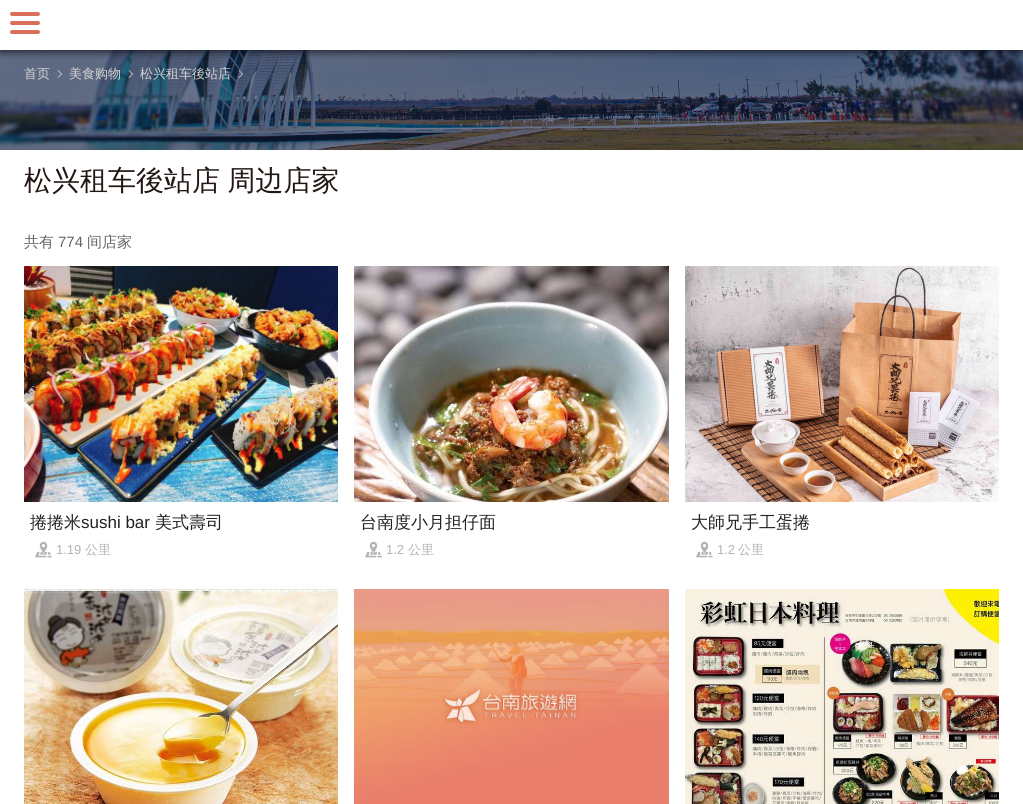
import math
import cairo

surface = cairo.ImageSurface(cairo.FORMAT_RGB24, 1023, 804)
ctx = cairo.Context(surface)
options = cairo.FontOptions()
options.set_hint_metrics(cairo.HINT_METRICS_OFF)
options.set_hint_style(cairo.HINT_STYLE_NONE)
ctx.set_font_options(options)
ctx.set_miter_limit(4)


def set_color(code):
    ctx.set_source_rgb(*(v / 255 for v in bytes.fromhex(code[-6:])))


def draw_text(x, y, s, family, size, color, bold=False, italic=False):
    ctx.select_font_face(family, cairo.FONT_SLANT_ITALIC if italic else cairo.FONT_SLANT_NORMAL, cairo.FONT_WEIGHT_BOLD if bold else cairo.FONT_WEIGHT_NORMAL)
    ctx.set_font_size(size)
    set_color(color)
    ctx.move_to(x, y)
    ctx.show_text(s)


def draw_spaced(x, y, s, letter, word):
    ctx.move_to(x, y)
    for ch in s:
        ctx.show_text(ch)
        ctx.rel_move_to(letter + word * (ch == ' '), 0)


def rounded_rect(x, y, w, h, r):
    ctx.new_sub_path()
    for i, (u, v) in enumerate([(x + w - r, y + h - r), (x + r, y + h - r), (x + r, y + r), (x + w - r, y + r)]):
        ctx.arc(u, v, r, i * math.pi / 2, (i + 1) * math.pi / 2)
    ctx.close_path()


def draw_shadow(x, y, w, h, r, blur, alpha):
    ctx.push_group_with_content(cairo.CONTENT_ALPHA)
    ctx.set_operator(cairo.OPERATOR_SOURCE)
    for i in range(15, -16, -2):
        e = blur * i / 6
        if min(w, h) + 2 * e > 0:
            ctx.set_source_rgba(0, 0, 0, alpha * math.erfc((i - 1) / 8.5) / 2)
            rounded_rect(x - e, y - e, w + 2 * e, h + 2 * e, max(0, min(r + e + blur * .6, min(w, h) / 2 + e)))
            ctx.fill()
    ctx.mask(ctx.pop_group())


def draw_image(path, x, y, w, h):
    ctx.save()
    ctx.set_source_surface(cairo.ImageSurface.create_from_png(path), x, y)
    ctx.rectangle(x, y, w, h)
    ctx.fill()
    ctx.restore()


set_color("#ffffff")
ctx.paint()
draw_image("assets/img1.png", 0, 50, 1023, 100)
ctx.save()
ctx.rectangle(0, 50, 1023, 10)
ctx.clip()
set_color("#000000")
draw_shadow(0, 0, 1023, 50, 0, 5, 1)
ctx.restore()
set_color("#da6f5a")
rounded_rect(10, 12, 30, 4, 2)
ctx.fill()
rounded_rect(10, 21, 30, 4, 2)
ctx.fill()
rounded_rect(10, 30, 30, 4, 2)
ctx.fill()
draw_text(24, 78, "首页", "WenQuanYi Zen Hei Medium", 13, "#d5d4d4")
ctx.new_path()
ctx.move_to(57.5, 70.5)
ctx.line_to(58, 70)
ctx.line_to(62, 74)
ctx.line_to(61.5, 74.5)
ctx.close_path()
ctx.fill()
ctx.new_path()
ctx.move_to(57.5, 77.5)
ctx.line_to(61.5, 73.5)
ctx.line_to(62, 74)
ctx.line_to(58, 78)
ctx.close_path()
ctx.fill()
draw_text(69, 78, "美食购物", "WenQuanYi Zen Hei Medium", 13, "#d5d4d4")
ctx.new_path()
ctx.move_to(128.5, 70.5)
ctx.line_to(129, 70)
ctx.line_to(133, 74)
ctx.line_to(132.5, 74.5)
ctx.close_path()
ctx.fill()
ctx.new_path()
ctx.move_to(128.5, 77.5)
ctx.line_to(132.5, 73.5)
ctx.line_to(133, 74)
ctx.line_to(129, 78)
ctx.close_path()
ctx.fill()
draw_text(140, 78, "松兴租车後站店", "WenQuanYi Zen Hei Medium", 13, "#d5d4d4")
ctx.new_path()
ctx.move_to(238.5, 70.5)
ctx.line_to(239, 70)
ctx.line_to(243, 74)
ctx.line_to(242.5, 74.5)
ctx.close_path()
ctx.fill()
ctx.new_path()
ctx.move_to(238.5, 77.5)
ctx.line_to(242.5, 73.5)
ctx.line_to(243, 74)
ctx.line_to(239, 78)
ctx.close_path()
ctx.fill()
ctx.set_font_size(28)
set_color("#231714")
draw_spaced(24, 190, "松兴租车後站店 周边店家", 0, -1)
draw_text(24, 247, "共有", "WenQuanYi Zen Hei Medium", 15, "#666666")
draw_text(58, 247, "774", "Liberation Sans", 15, "#666666")
draw_text(87, 247, "间店家", "WenQuanYi Zen Hei Medium", 15, "#666666")
draw_image("assets/img2.png", 24, 266, 314, 236)
draw_text(30, 528, "捲捲米", "WenQuanYi Zen Hei Medium", 17, "#212121")
draw_text(81, 528, "sushi bar", "Liberation Sans", 17, "#212121")
draw_text(155, 528, "美式壽司", "WenQuanYi Zen Hei Medium", 17, "#212121")
draw_image("assets/img3.png", 35, 541, 17, 17)
draw_text(56, 554, "1.19", "Liberation Sans", 13, "#b3b3b3")
draw_text(85, 554, "公里", "WenQuanYi Zen Hei Medium", 13, "#b3b3b3")
draw_image("assets/img4.png", 354, 266, 315, 236)
draw_text(360, 528, "台南度小月担仔面", "WenQuanYi Zen Hei Medium", 17, "#212121")
draw_image("assets/img3.png", 365, 541, 17, 17)
draw_text(386, 554, "1.2", "Liberation Sans", 13, "#b3b3b3")
draw_text(408, 554, "公里", "WenQuanYi Zen Hei Medium", 13, "#b3b3b3")
draw_image("assets/img5.png", 685, 266, 314, 236)
draw_text(691, 528, "大師兄手工蛋捲", "WenQuanYi Zen Hei Medium", 17, "#212121")
draw_image("assets/img3.png", 696, 541, 17, 17)
draw_text(717, 554, "1.2", "Liberation Sans", 13, "#b3b3b3")
draw_text(738, 554, "公里", "WenQuanYi Zen Hei Medium", 13, "#b3b3b3")
draw_image("assets/img6.png", 24, 589, 314, 215)
draw_image("assets/img7.png", 354, 589, 315, 215)
draw_image("assets/img8.png", 685, 589, 314, 215)
surface.write_to_png("output.png")
